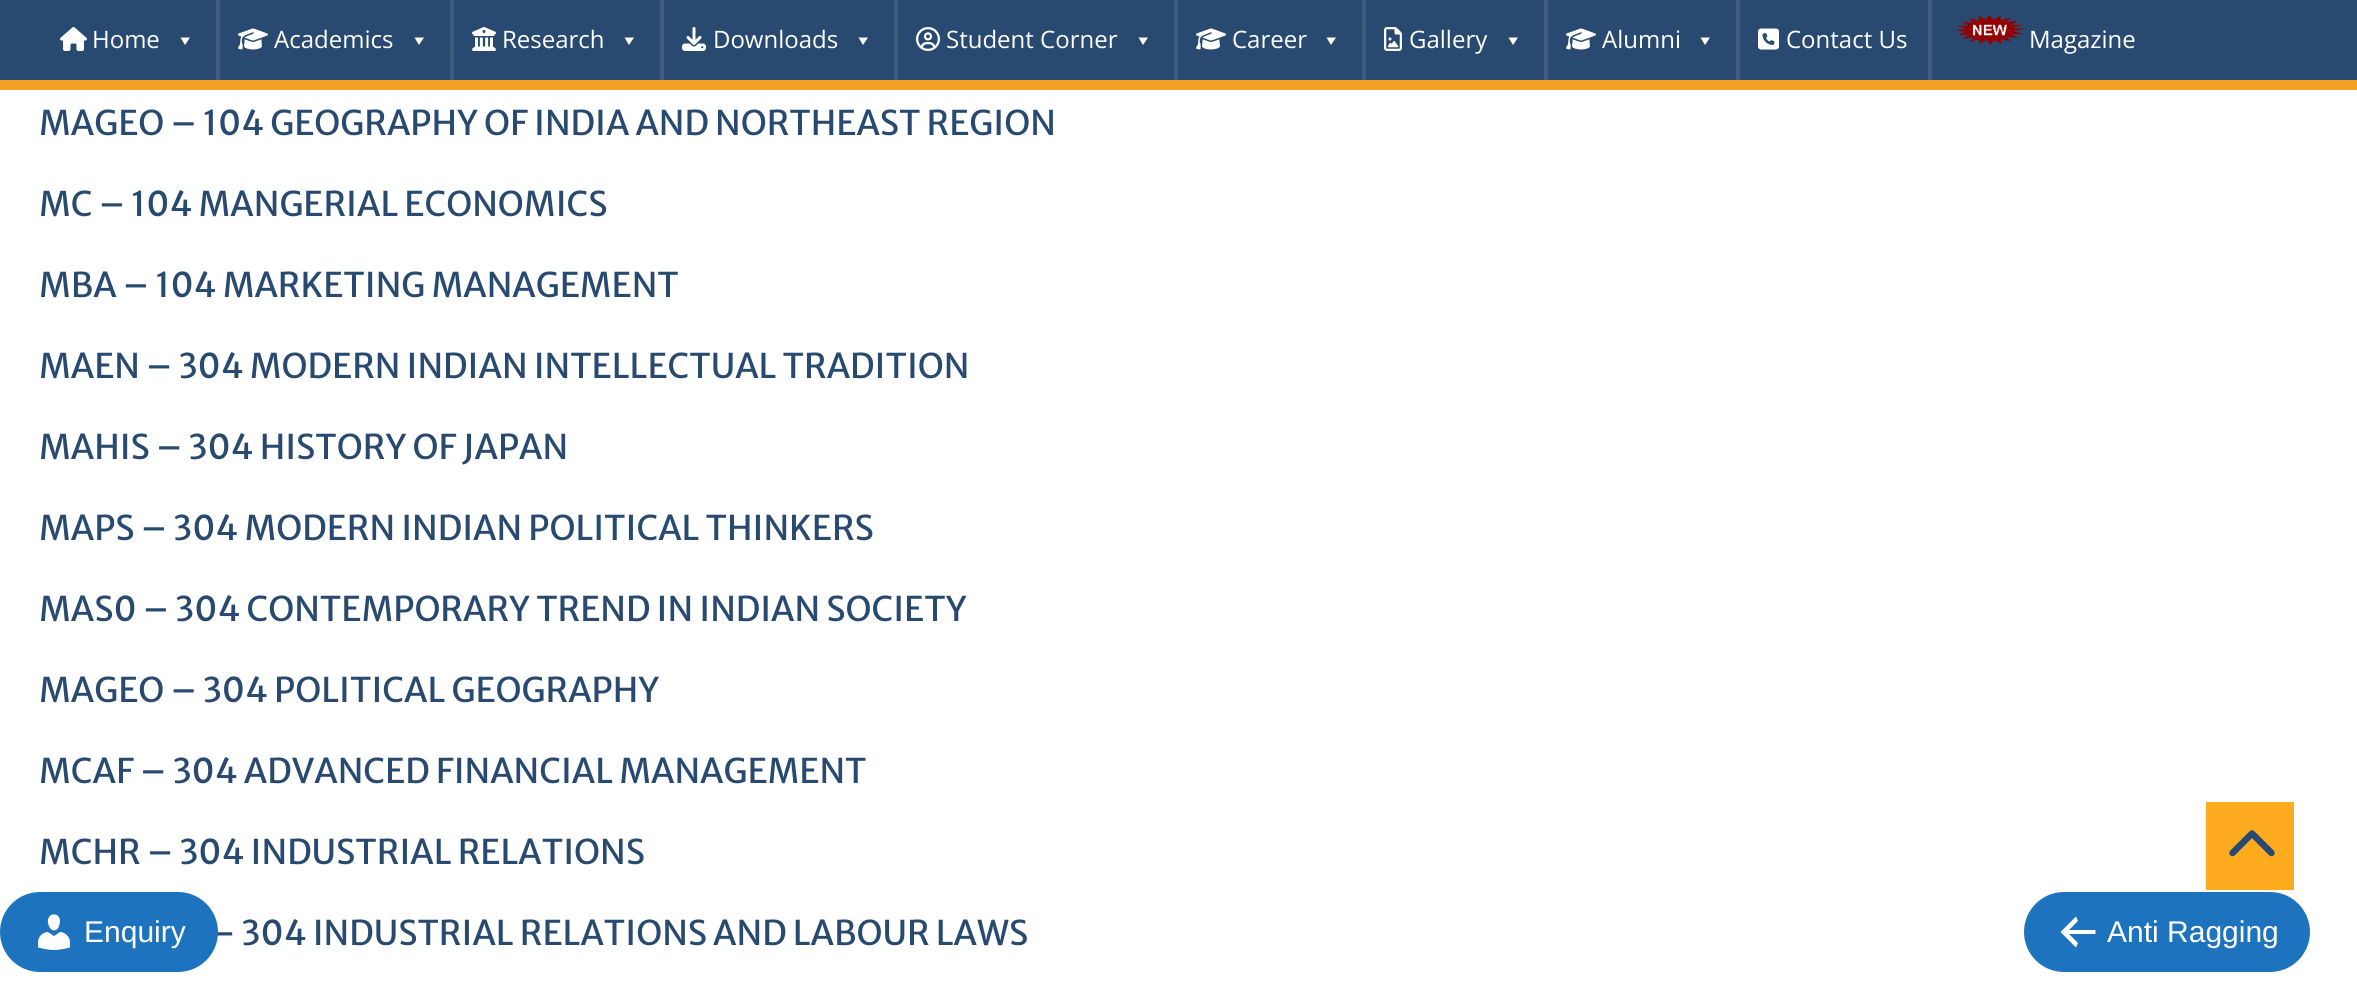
import math
import cairo

surface = cairo.ImageSurface(cairo.FORMAT_RGB24, 2357, 989)
ctx = cairo.Context(surface)
options = cairo.FontOptions()
options.set_hint_metrics(cairo.HINT_METRICS_OFF)
options.set_hint_style(cairo.HINT_STYLE_NONE)
ctx.set_font_options(options)
ctx.set_miter_limit(4)


def set_color(code):
    ctx.set_source_rgb(*(v / 255 for v in bytes.fromhex(code[-6:])))


def draw_text(x, y, s, family, size, color, bold=False, italic=False):
    ctx.select_font_face(family, cairo.FONT_SLANT_ITALIC if italic else cairo.FONT_SLANT_NORMAL, cairo.FONT_WEIGHT_BOLD if bold else cairo.FONT_WEIGHT_NORMAL)
    ctx.set_font_size(size)
    set_color(color)
    ctx.move_to(x, y)
    ctx.show_text(s)


def fill_rect(x, y, w, h, color):
    set_color(color)
    ctx.rectangle(x, y, w, h)
    ctx.fill()


def rounded_rect(x, y, w, h, r):
    ctx.new_sub_path()
    for i, (u, v) in enumerate([(x + w - r, y + h - r), (x + r, y + h - r), (x + r, y + r), (x + w - r, y + r)]):
        ctx.arc(u, v, r, i * math.pi / 2, (i + 1) * math.pi / 2)
    ctx.close_path()


def draw_image(path, x, y, w, h):
    ctx.save()
    ctx.set_source_surface(cairo.ImageSurface.create_from_png(path), x, y)
    ctx.rectangle(x, y, w, h)
    ctx.fill()
    ctx.restore()


set_color("#ffffff")
ctx.paint()
fill_rect(0, 0, 2357, 80, "#294a70")
fill_rect(0, 80, 2357, 10, "#f4a024")
draw_image("assets/img1.png", 60, 27, 27, 24)
draw_text(92, 48, "Home", "Open Sans", 24, "#ffffff")
ctx.new_path()
ctx.move_to(190, 37.5)
ctx.line_to(185, 45)
ctx.line_to(180.5, 37.5)
ctx.close_path()
ctx.fill()
fill_rect(216, 0, 4, 80, "#3e5c7e")
draw_image("assets/img2.png", 238, 28, 30, 22)
draw_text(274, 48, "Academics", "Open Sans", 24, "#ffffff")
ctx.new_path()
ctx.move_to(424, 37.5)
ctx.line_to(419, 45)
ctx.line_to(414.5, 37.5)
ctx.close_path()
ctx.fill()
fill_rect(450, 0, 4, 80, "#3e5c7e")
draw_image("assets/img3.png", 472, 27, 24, 24)
draw_text(502, 48, "Research", "Open Sans", 24, "#ffffff")
ctx.new_path()
ctx.move_to(634, 37.5)
ctx.line_to(629, 45)
ctx.line_to(624.5, 37.5)
ctx.close_path()
ctx.fill()
fill_rect(660, 0, 4, 80, "#3e5c7e")
draw_image("assets/img4.png", 682, 27, 24, 24)
draw_text(713, 48, "Downloads", "Open Sans", 24, "#ffffff")
ctx.new_path()
ctx.move_to(868, 37.5)
ctx.line_to(863, 45)
ctx.line_to(858.5, 37.5)
ctx.close_path()
ctx.fill()
fill_rect(894, 0, 4, 80, "#3e5c7e")
draw_image("assets/img5.png", 916, 27, 24, 24)
draw_text(946, 48, "Student Corner", "Open Sans", 24, "#ffffff")
ctx.new_path()
ctx.move_to(1148, 37.5)
ctx.line_to(1143, 45)
ctx.line_to(1138.5, 37.5)
ctx.close_path()
ctx.fill()
fill_rect(1174, 0, 4, 80, "#3e5c7e")
draw_image("assets/img2.png", 1196, 28, 30, 22)
draw_text(1232, 48, "Career", "Open Sans", 24, "#ffffff")
ctx.new_path()
ctx.move_to(1336, 37.5)
ctx.line_to(1331, 45)
ctx.line_to(1326.5, 37.5)
ctx.close_path()
ctx.fill()
fill_rect(1362, 0, 4, 80, "#3e5c7e")
draw_image("assets/img6.png", 1384, 27, 18, 24)
draw_text(1409, 48, "Gallery", "Open Sans", 24, "#ffffff")
ctx.new_path()
ctx.move_to(1518, 37.5)
ctx.line_to(1513, 45)
ctx.line_to(1508.5, 37.5)
ctx.close_path()
ctx.fill()
fill_rect(1544, 0, 4, 80, "#3e5c7e")
draw_image("assets/img2.png", 1566, 28, 30, 22)
draw_text(1602, 48, "Alumni", "Open Sans", 24, "#ffffff")
ctx.new_path()
ctx.move_to(1710, 37.5)
ctx.line_to(1705, 45)
ctx.line_to(1700.5, 37.5)
ctx.close_path()
ctx.fill()
fill_rect(1736, 0, 4, 80, "#3e5c7e")
draw_image("assets/img7.png", 1758, 28, 21, 22)
draw_text(1786, 48, "Contact Us", "Open Sans", 24, "#ffffff")
fill_rect(1928, 0, 4, 80, "#3e5c7e")
draw_image("assets/img8.png", 1955, 14, 70, 31)
draw_text(2029, 48, "Magazine", "Open Sans", 24, "#ffffff")
draw_text(39, 135, "MAGEO – 104 GEOGRAPHY OF INDIA AND NORTHEAST REGION", "Merriweather Sans", 34, "#294a70")
draw_text(39, 216, "MC – 104 MANGERIAL ECONOMICS", "Merriweather Sans", 34, "#294a70")
draw_text(39, 297, "MBA – 104 MARKETING MANAGEMENT", "Merriweather Sans", 34, "#294a70")
draw_text(39, 378, "MAEN – 304 MODERN INDIAN INTELLECTUAL TRADITION", "Merriweather Sans", 34, "#294a70")
draw_text(39, 459, "MAHIS – 304 HISTORY OF JAPAN", "Merriweather Sans", 34, "#294a70")
draw_text(39, 540, "MAPS – 304 MODERN INDIAN POLITICAL THINKERS", "Merriweather Sans", 34, "#294a70")
draw_text(39, 621, "MAS0 – 304 CONTEMPORARY TREND IN INDIAN SOCIETY", "Merriweather Sans", 34, "#294a70")
draw_text(39, 702, "MAGEO – 304 POLITICAL GEOGRAPHY", "Merriweather Sans", 34, "#294a70")
draw_text(39, 783, "MCAF – 304 ADVANCED FINANCIAL MANAGEMENT", "Merriweather Sans", 34, "#294a70")
draw_text(39, 864, "MCHR – 304 INDUSTRIAL RELATIONS", "Merriweather Sans", 34, "#294a70")
draw_text(209, 945, "– 304 INDUSTRIAL RELATIONS AND LABOUR LAWS", "Merriweather Sans", 34, "#294a70")
fill_rect(2206, 802, 88, 88, "#ffab1f")
draw_image("assets/img9.png", 2229, 830, 46, 27)
set_color("#1e73be")
rounded_rect(0, 892, 218, 80, 40)
ctx.fill()
draw_image("assets/img10.png", 38, 914, 32, 36)
draw_text(84, 942, "Enquiry", "Liberation Sans", 30, "#ffffff")
set_color("#1e73be")
rounded_rect(2024, 892, 286, 80, 40)
ctx.fill()
set_color("#ffffff")
ctx.new_path()
ctx.move_to(2095.5, 930)
ctx.line_to(2095.5, 934)
ctx.line_to(2069, 934)
ctx.line_to(2078, 943)
ctx.line_to(2076, 947.5)
ctx.line_to(2060.5, 932)
ctx.line_to(2076, 916.5)
ctx.line_to(2078, 921)
ctx.line_to(2069, 930)
ctx.close_path()
ctx.fill()
draw_text(2107, 942, "Anti Ragging", "Liberation Sans", 30, "#ffffff")
surface.write_to_png("output.png")
